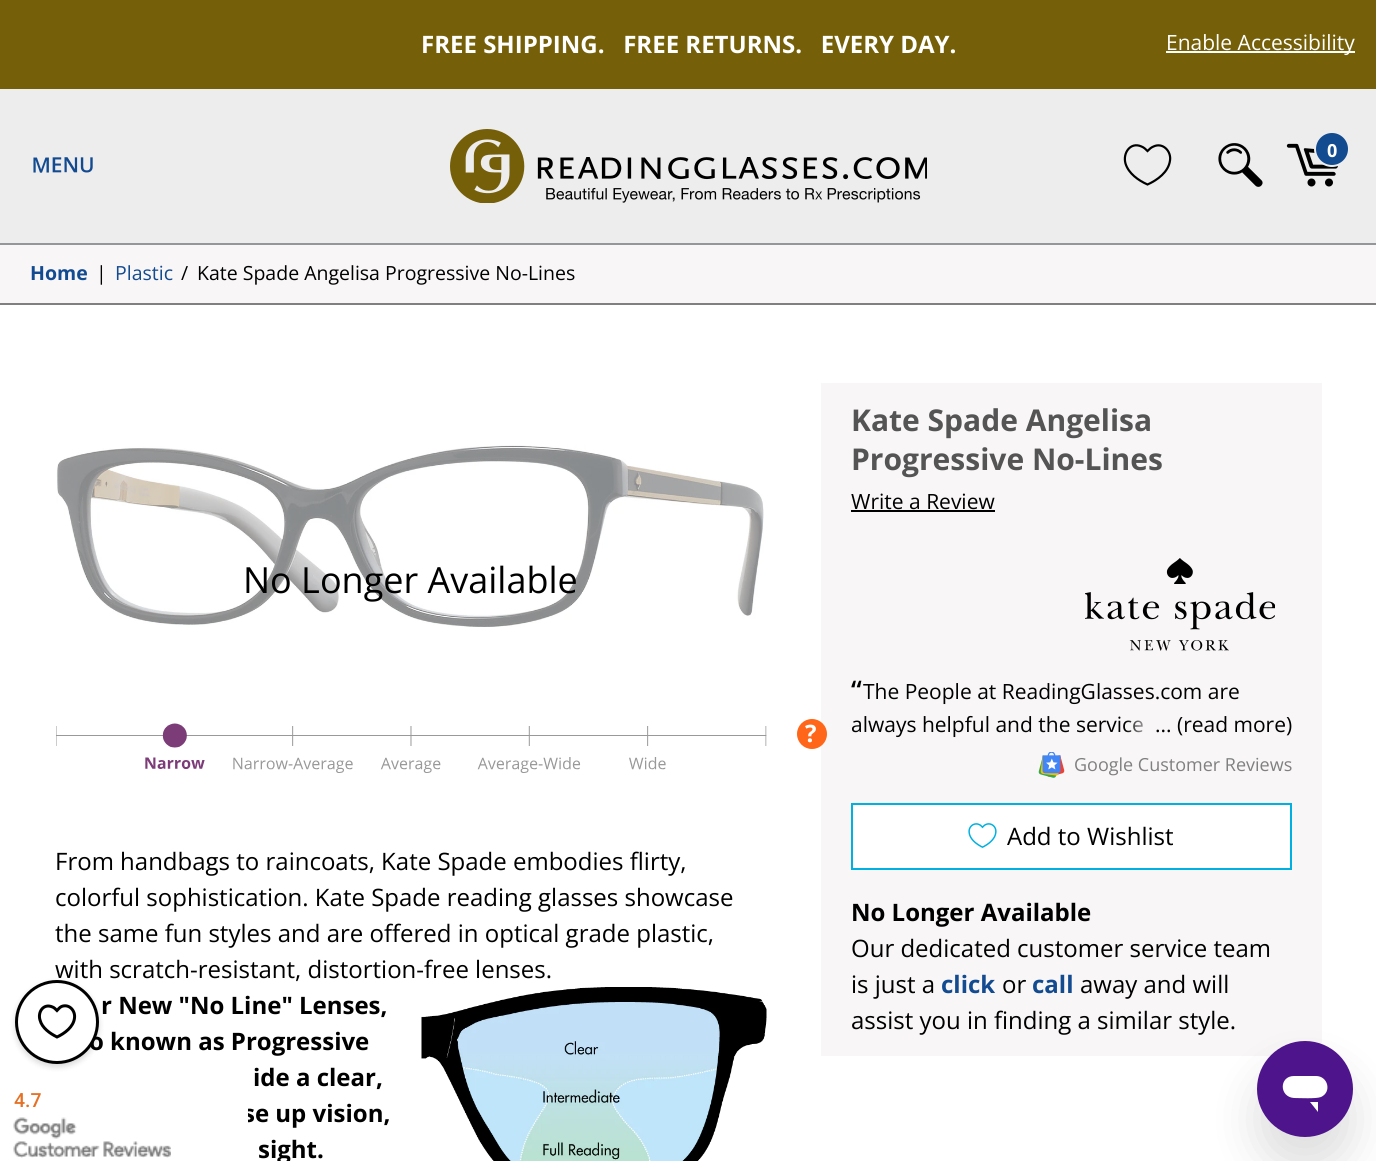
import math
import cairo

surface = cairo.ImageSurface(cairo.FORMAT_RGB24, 1376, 1161)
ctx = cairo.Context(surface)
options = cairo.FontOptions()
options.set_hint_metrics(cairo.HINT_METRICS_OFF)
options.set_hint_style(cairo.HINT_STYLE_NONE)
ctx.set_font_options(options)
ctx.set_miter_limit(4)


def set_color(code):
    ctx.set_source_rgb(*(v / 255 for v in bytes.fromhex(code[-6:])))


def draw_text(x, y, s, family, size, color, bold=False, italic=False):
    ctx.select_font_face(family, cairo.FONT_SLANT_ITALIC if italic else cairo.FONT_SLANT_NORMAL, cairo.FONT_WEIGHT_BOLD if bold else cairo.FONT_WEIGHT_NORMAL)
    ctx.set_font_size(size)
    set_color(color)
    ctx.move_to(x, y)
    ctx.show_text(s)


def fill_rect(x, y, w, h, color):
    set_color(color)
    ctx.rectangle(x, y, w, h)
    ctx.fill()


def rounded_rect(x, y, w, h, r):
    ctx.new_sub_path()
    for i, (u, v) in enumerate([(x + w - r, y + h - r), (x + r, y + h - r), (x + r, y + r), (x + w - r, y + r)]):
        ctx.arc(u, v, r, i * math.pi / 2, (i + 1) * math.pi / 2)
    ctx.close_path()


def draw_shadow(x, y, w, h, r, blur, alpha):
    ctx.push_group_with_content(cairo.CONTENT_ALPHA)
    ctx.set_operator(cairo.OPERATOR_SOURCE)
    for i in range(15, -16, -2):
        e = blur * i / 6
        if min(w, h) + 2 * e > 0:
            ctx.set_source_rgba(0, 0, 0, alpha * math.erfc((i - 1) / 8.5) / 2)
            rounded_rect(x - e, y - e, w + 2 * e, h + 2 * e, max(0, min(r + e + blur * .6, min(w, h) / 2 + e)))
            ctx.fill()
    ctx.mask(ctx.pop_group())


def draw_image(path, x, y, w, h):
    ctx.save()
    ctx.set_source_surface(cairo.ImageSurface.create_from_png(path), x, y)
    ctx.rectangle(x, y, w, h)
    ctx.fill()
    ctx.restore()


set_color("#ffffff")
ctx.paint()
fill_rect(0, 0, 1376, 89, "#756009")
draw_text(421, 53, "FREE SHIPPING.   FREE RETURNS.   EVERY DAY.", "Open Sans", 24, "#ffffff", bold=True)
fill_rect(1166, 51, 189, 2, "#ffffff")
draw_text(1166, 50, "Enable Accessibility", "Open Sans", 21, "#ffffff")
fill_rect(0, 89, 1376, 154, "#eeedee")
fill_rect(0, 243, 1376, 2, "#949699")
draw_image("assets/img1.png", 450, 129, 477, 74)
ctx.new_path()
ctx.move_to(1147.5, 184.5)
ctx.curve_to(1138.5, 180.5, 1128.5, 173.5, 1125.5, 163.5)
ctx.curve_to(1122.5, 153, 1130.5, 141.5, 1141.5, 146.5)
ctx.curve_to(1144, 147.5, 1145.5, 149, 1147.5, 151)
ctx.curve_to(1149.5, 149, 1151, 147.5, 1153.5, 146.5)
ctx.curve_to(1163, 142, 1171.5, 151.5, 1170, 160.5)
ctx.curve_to(1168.5, 172, 1157.5, 180, 1147.5, 184.5)
ctx.close_path()
set_color("#000000")
ctx.set_line_width(2.2)
ctx.stroke()
draw_image("assets/img2.png", 1218, 143, 45, 44)
draw_image("assets/img3.png", 1286, 143, 52, 44)
set_color("#134b90")
ctx.arc(1332, 149, 17, 0, 2 * math.pi)
ctx.fill_preserve()
set_color("#eeedee")
ctx.set_line_width(2)
ctx.stroke()
draw_text(1327, 157, "0", "Open Sans", 18, "#ffffff", bold=True)
draw_image("assets/img4.png", 33, 157, 60, 16)
fill_rect(0, 245, 1376, 58, "#f8f6f6")
fill_rect(0, 303, 1376, 2, "#808080")
draw_text(30, 280, "Home", "Open Sans", 19.5, "#134b90", bold=True)
draw_text(96, 280, "|", "Open Sans", 19.5, "#000000")
draw_text(115, 280, "Plastic", "Open Sans", 19.5, "#134b90")
draw_text(181, 280, "/", "Open Sans", 19.5, "#000000")
draw_text(197, 280, "Kate Spade Angelisa Progressive No-Lines", "Open Sans", 19.5, "#000000")
draw_image("assets/img5.png", 56, 445, 708, 182)
draw_text(243, 593, "No Longer Available", "Open Sans", 36, "#000000")
draw_image("assets/img6.png", 56, 723, 711, 50)
fill_rect(821, 383, 501, 673, "#f8f6f6")
set_color("#ff6619")
ctx.arc(812, 734, 15, 0, 2 * math.pi)
ctx.fill()
draw_text(805, 742, "?", "Open Sans", 24, "#ffffff", bold=True)
draw_text(851, 431, "Kate Spade Angelisa", "Open Sans", 30, "#545454", bold=True)
draw_text(851, 470, "Progressive No-Lines", "Open Sans", 30, "#545454", bold=True)
draw_text(851, 509, "Write a Review", "Open Sans", 21, "#000000")
fill_rect(851, 510, 144, 2, "#000000")
draw_image("assets/img7.png", 1085, 558, 190, 93)
draw_text(851, 700, "“", "Open Sans SemiBold", 27, "#000000")
draw_text(863, 699, "The People at ReadingGlasses.com are", "Open Sans", 21, "#000000")
draw_text(851, 732, "always helpful and the service", "Open Sans", 21, "#000000")
gradient = cairo.LinearGradient(1125, 725, 1292, 725)
gradient.add_color_stop_rgba(0, 0.973, 0.965, 0.965, 0)
gradient.add_color_stop_rgba(0.18, 0.973, 0.965, 0.965, 1)
ctx.set_source(gradient)
ctx.rectangle(1126, 720, 17, 13)
ctx.fill()
draw_text(1155, 732, "... (read more)", "Open Sans", 21, "#000000")
draw_image("assets/img8.png", 1038, 752, 27, 26)
draw_text(1074, 771, "Google Customer Reviews", "Open Sans", 18, "#808080")
set_color("#ffffff")
ctx.rectangle(852, 804, 439, 65)
ctx.fill_preserve()
set_color("#00b0e0")
ctx.stroke()
draw_image("assets/img9.png", 968, 823, 29, 25)
draw_text(1007, 845, "Add to Wishlist", "Open Sans", 24, "#000000")
draw_text(851, 921, "No Longer Available", "Open Sans", 24, "#000000", bold=True)
draw_text(851, 957, "Our dedicated customer service team", "Open Sans", 24, "#000000")
draw_text(851, 993, "is just a", "Open Sans", 24, "#000000")
draw_text(941, 993, "click", "Open Sans", 24, "#134b90", bold=True)
draw_text(1002, 993, "or", "Open Sans", 24, "#000000")
draw_text(1032, 993, "call", "Open Sans", 24, "#134b90", bold=True)
draw_text(1080, 993, "away and will", "Open Sans", 24, "#000000")
draw_text(851, 1029, "assist you in finding a similar style.", "Open Sans", 24, "#000000")
draw_text(55, 870, "From handbags to raincoats, Kate Spade embodies flirty,", "Open Sans", 24, "#000000")
draw_text(55, 906, "colorful sophistication. Kate Spade reading glasses showcase", "Open Sans", 24, "#000000")
draw_text(55, 942, "the same fun styles and are offered in optical grade plastic,", "Open Sans", 24, "#000000")
draw_text(55, 978, "with scratch-resistant, distortion-free lenses.", "Open Sans", 24, "#000000")
draw_text(101, 1014, "r New \"No Line\" Lenses,", "Open Sans", 24, "#000000", bold=True)
draw_image("assets/img10.png", 421, 987, 346, 174)
draw_text(89, 1050, "o known as Progressive", "Open Sans", 24, "#000000", bold=True)
draw_text(253, 1086, "ide a clear,", "Open Sans", 24, "#000000", bold=True)
draw_text(243, 1122, "se up vision,", "Open Sans", 24, "#000000", bold=True)
draw_text(258, 1158, "sight.", "Open Sans", 24, "#000000", bold=True)
set_color("#000000")
draw_shadow(15, 983, 84, 84, 42, 3, 0.15)
set_color("#ffffff")
ctx.arc(57, 1022, 40.5, 0, 2 * math.pi)
ctx.fill_preserve()
set_color("#000000")
ctx.set_line_width(3)
ctx.stroke()
ctx.new_path()
ctx.move_to(57, 1037)
ctx.curve_to(50, 1033.5, 42, 1028, 40, 1020)
ctx.curve_to(37.5, 1012, 43.5, 1003, 52.5, 1007)
ctx.curve_to(54, 1007.5, 55.5, 1009, 57, 1010.5)
ctx.curve_to(58.5, 1009, 59.5, 1007.5, 61.5, 1006.5)
ctx.curve_to(69, 1003.5, 75.5, 1010.5, 74.5, 1018)
ctx.curve_to(73.5, 1027, 64.5, 1033.5, 57, 1037)
ctx.close_path()
ctx.stroke()
set_color("#242424")
draw_shadow(1257, 1071, 96, 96, 48, 22.5, 0.15)
set_color("#4d148c")
ctx.arc(1305, 1089, 46.5, 0, 2 * math.pi)
ctx.fill_preserve()
ctx.stroke()
set_color("#ffffff")
ctx.new_path()
ctx.move_to(1310, 1102)
ctx.line_to(1318, 1112)
ctx.line_to(1318, 1102)
ctx.close_path()
ctx.move_to(1294, 1076)
ctx.curve_to(1279, 1076, 1279, 1097, 1294, 1098)
ctx.curve_to(1299, 1098, 1316, 1099, 1321, 1097)
ctx.curve_to(1332, 1092, 1328, 1076, 1316, 1076)
ctx.close_path()
ctx.fill()
fill_rect(244, 1108, 4, 15, "#ffffff")
draw_text(14, 1107, "4.7", "Roboto Medium", 19.5, "#e57125")
draw_image("assets/img11.png", 13, 1117, 158, 41)
surface.write_to_png("output.png")
